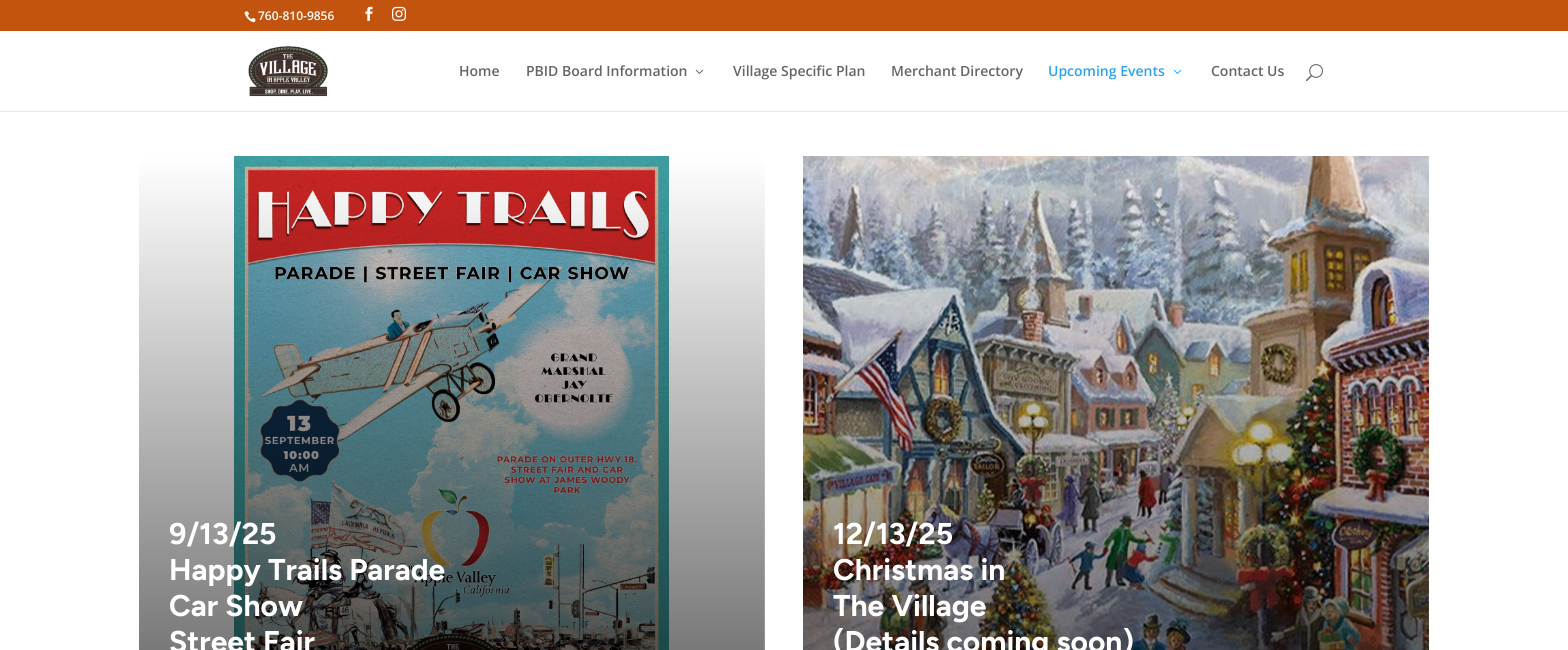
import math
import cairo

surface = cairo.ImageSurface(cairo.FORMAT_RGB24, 1568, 650)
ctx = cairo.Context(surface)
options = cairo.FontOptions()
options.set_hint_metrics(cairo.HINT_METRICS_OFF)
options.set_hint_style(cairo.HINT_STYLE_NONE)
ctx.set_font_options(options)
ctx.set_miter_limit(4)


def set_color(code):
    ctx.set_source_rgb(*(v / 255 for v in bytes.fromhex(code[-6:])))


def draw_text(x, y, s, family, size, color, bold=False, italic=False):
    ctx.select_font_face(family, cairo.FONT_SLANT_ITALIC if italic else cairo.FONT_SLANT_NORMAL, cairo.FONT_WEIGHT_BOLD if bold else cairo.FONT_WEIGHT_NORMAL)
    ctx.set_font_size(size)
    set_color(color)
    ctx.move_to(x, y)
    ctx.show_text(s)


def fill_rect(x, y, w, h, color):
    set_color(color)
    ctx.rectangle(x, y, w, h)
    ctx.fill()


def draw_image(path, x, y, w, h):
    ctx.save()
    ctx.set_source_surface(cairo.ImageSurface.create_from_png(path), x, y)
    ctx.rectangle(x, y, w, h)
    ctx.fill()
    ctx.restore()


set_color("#ffffff")
ctx.paint()
fill_rect(0, 0, 1568, 31, "#c3540f")
draw_image("assets/img1.png", 244, 11, 12, 12)
draw_text(258, 20, "760-810-9856", "Open Sans SemiBold", 12, "#ffffff")
draw_image("assets/img2.png", 365, 6, 8, 15)
draw_image("assets/img3.png", 392, 6, 14, 15)
fill_rect(0, 111, 1568, 1, "#e6e6e6")
draw_image("assets/img4.png", 248, 46, 80, 51)
draw_text(459, 76, "Home", "Open Sans SemiBold", 14, "#666666")
draw_text(526, 76, "PBID Board Information", "Open Sans SemiBold", 14, "#666666")
draw_image("assets/img5.png", 695, 69, 9, 5)
draw_text(733, 76, "Village Specific Plan", "Open Sans SemiBold", 14, "#666666")
draw_text(891, 76, "Merchant Directory", "Open Sans SemiBold", 14, "#666666")
draw_text(1048, 76, "Upcoming Events", "Open Sans SemiBold", 14, "#2ea3f2")
draw_image("assets/img6.png", 1173, 69, 9, 5)
draw_text(1211, 76, "Contact Us", "Open Sans SemiBold", 14, "#666666")
draw_image("assets/img7.png", 1306, 64, 17, 18)
draw_image("assets/img8.png", 139, 156, 626, 494)
draw_text(169, 544, "9/13/25", "Figtree", 30, "#ffffff", bold=True)
draw_text(169, 580, "Happy Trails Parade", "Figtree", 30, "#ffffff", bold=True)
draw_text(169, 616, "Car Show", "Figtree", 30, "#ffffff", bold=True)
draw_text(169, 652, "Street Fair", "Figtree", 30, "#ffffff", bold=True)
draw_image("assets/img9.png", 803, 156, 626, 494)
draw_text(833, 544, "12/13/25", "Figtree", 30, "#ffffff", bold=True)
draw_text(833, 580, "Christmas in", "Figtree", 30, "#ffffff", bold=True)
draw_text(833, 616, "The Village", "Figtree", 30, "#ffffff", bold=True)
draw_text(833, 652, "(Details coming soon)", "Figtree", 30, "#ffffff", bold=True)
surface.write_to_png("output.png")
